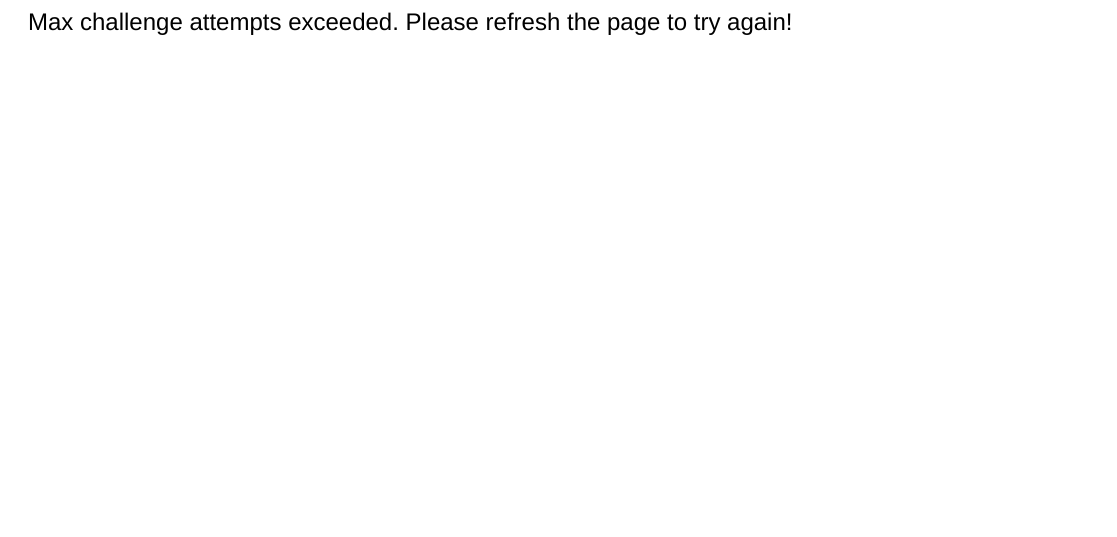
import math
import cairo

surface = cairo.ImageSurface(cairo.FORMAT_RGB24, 1117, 537)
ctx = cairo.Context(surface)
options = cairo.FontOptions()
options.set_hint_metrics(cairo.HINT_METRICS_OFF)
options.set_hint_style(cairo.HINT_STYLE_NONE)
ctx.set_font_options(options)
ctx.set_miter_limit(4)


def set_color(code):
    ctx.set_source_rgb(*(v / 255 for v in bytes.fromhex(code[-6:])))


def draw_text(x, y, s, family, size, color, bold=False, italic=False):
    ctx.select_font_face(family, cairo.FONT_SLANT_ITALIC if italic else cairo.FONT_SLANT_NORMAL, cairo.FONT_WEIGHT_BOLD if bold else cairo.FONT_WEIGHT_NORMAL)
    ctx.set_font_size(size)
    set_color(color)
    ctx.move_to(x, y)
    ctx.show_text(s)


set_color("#ffffff")
ctx.paint()
draw_text(28, 30, "Max challenge attempts exceeded. Please refresh the page to try again!", "Liberation Sans", 24, "#000000")
surface.write_to_png("output.png")
